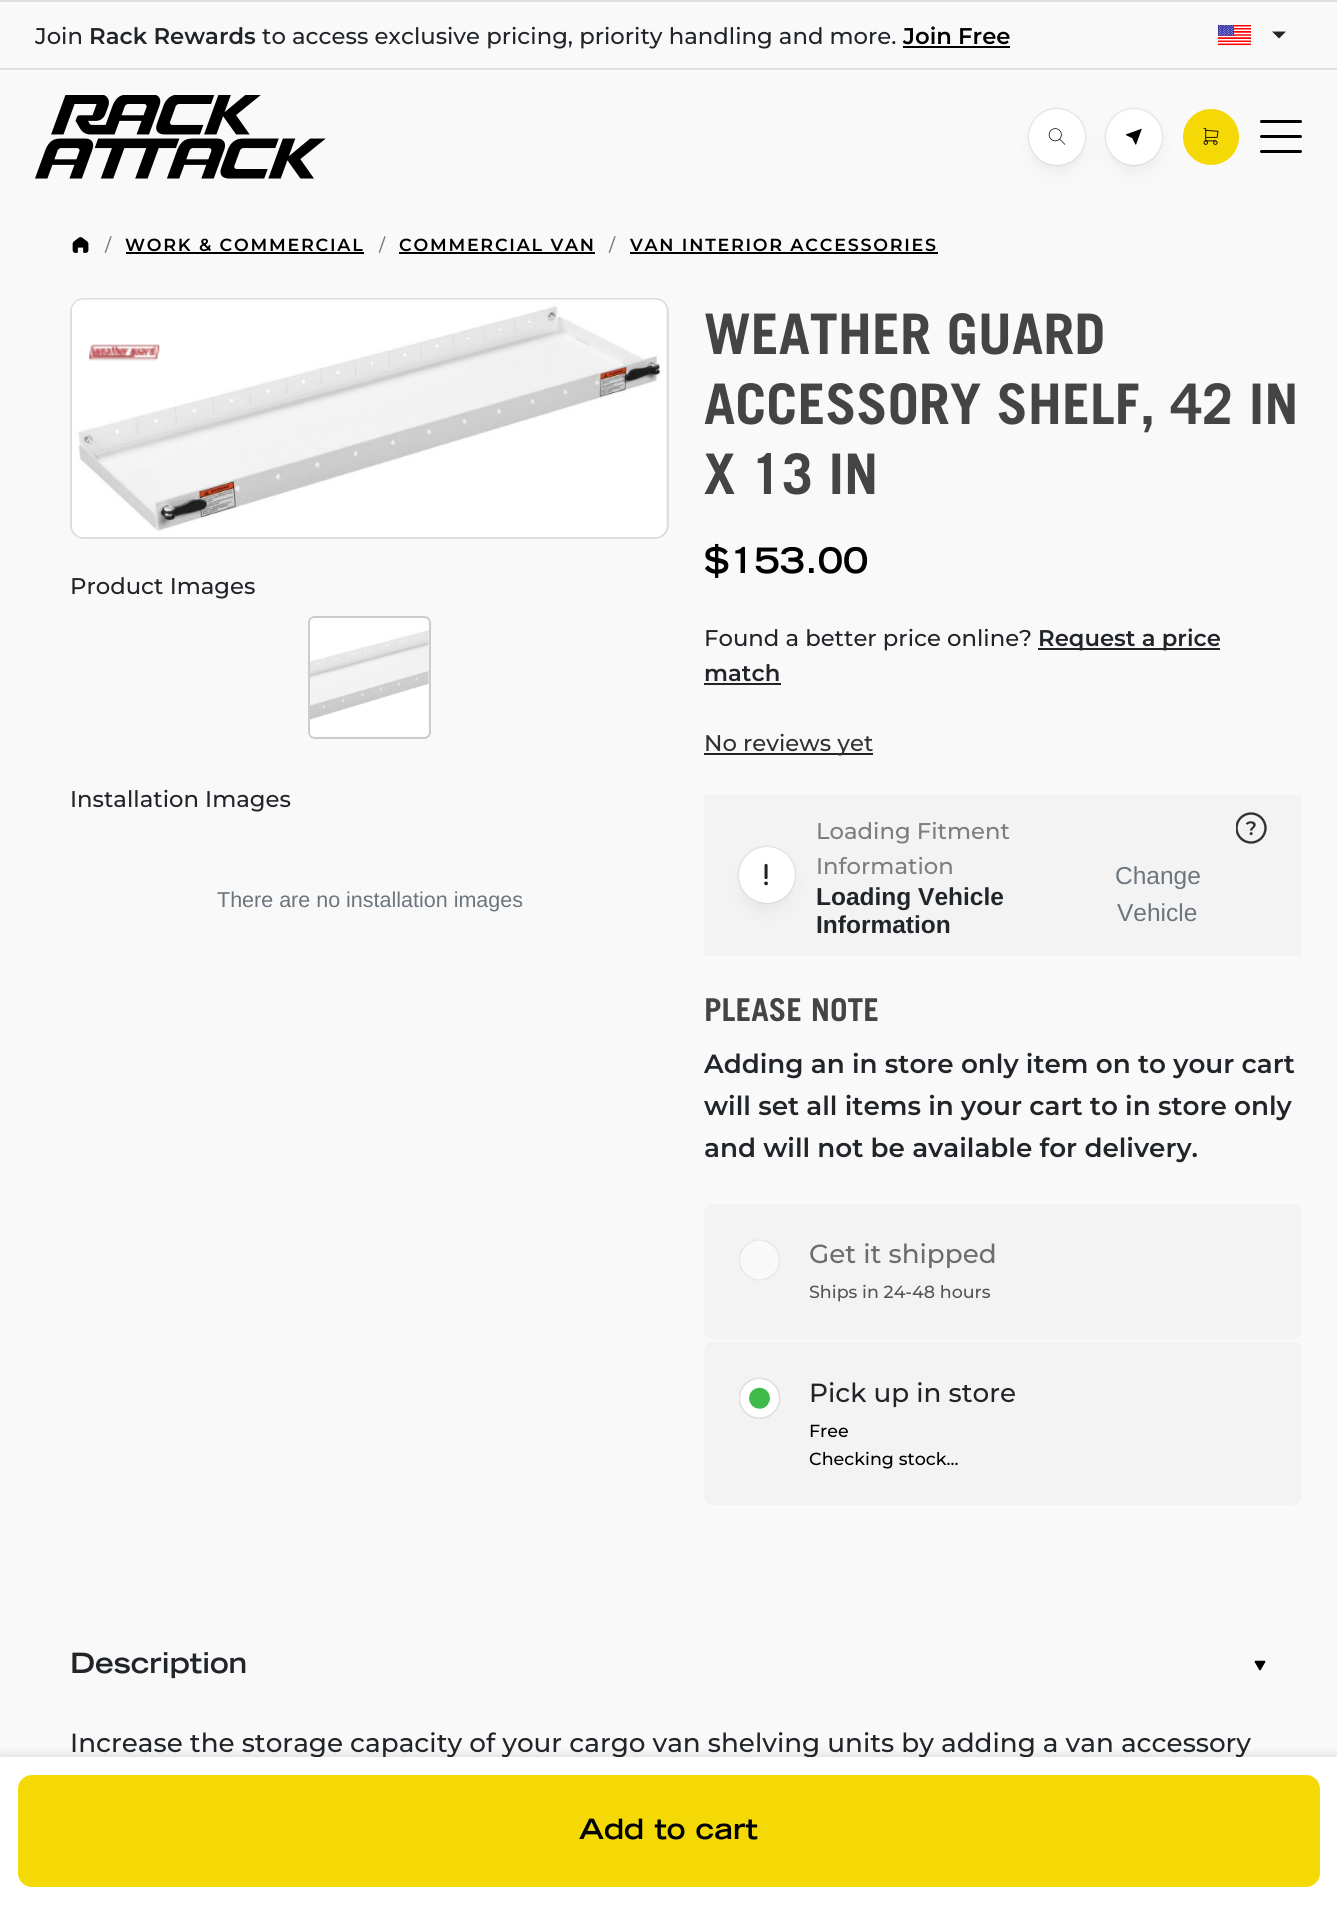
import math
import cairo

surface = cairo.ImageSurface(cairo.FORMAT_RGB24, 1337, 1921)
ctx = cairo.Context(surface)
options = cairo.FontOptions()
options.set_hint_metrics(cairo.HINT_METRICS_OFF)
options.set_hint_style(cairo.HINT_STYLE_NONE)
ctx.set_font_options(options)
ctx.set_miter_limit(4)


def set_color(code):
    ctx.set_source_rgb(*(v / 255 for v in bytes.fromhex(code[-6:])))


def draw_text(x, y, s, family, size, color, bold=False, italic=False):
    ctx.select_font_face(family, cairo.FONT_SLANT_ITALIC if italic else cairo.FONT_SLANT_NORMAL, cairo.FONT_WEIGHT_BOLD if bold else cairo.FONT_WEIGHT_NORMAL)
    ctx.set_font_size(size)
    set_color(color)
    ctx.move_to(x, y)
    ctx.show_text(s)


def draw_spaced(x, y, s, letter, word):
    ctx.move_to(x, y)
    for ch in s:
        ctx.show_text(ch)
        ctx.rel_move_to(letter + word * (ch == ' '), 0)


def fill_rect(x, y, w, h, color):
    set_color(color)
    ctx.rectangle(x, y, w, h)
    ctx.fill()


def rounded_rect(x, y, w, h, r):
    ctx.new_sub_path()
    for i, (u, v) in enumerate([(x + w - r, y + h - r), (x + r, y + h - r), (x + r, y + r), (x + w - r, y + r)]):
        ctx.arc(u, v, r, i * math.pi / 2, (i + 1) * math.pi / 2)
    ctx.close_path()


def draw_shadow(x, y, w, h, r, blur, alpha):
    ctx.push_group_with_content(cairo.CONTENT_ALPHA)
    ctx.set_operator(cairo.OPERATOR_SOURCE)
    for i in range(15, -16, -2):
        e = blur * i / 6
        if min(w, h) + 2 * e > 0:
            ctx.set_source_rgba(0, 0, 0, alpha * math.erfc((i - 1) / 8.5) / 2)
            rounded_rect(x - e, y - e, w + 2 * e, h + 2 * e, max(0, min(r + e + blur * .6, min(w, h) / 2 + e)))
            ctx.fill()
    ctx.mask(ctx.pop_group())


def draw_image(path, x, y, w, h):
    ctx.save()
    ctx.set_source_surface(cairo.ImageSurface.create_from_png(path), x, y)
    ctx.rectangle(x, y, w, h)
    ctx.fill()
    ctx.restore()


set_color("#f9f9f9")
ctx.paint()
fill_rect(0, 0, 1337, 2, "#e0e0e0")
fill_rect(0, 68, 1337, 2, "#e0e0e0")
draw_text(35, 44, "Join", "Montserrat Medium", 22.75, "#212529")
draw_text(89, 44, "Rack Rewards", "Montserrat SemiBold", 22.75, "#212529")
draw_text(262, 44, "to access exclusive pricing, priority handling and more.", "Montserrat Medium", 22.75, "#212529")
draw_text(903, 44, "Join Free", "Montserrat SemiBold", 22.75, "#000000")
fill_rect(903, 46, 107, 2, "#000000")
draw_image("assets/img1.png", 1218, 25, 33, 21)
set_color("#212529")
ctx.new_path()
ctx.move_to(1272, 31.5)
ctx.line_to(1286, 31.5)
ctx.line_to(1279, 38.5)
ctx.close_path()
ctx.fill()
draw_image("assets/img2.png", 35, 95, 291, 84)
set_color("#18274b")
draw_shadow(1040, 130, 35, 35, 17.5, 12, 0.12)
set_color("#c0bebb")
draw_shadow(1029, 109, 56, 56, 28, 1, 1)
set_color("#ffffff")
ctx.arc(1057, 137, 28, 0, 2 * math.pi)
ctx.fill()
draw_image("assets/img3.png", 1048, 128, 18, 17)
set_color("#18274b")
draw_shadow(1117, 130, 35, 35, 17.5, 12, 0.12)
set_color("#c0bebb")
draw_shadow(1106, 109, 56, 56, 28, 1, 1)
set_color("#ffffff")
ctx.arc(1134, 137, 28, 0, 2 * math.pi)
ctx.fill()
draw_image("assets/img4.png", 1125, 128, 17, 17)
set_color("#f4d907")
ctx.arc(1211, 137, 28, 0, 2 * math.pi)
ctx.fill()
draw_image("assets/img5.png", 1203, 128, 16, 17)
set_color("#000000")
rounded_rect(1260, 120, 42, 3, 1.5)
ctx.fill()
rounded_rect(1260, 135, 42, 3, 1.5)
ctx.fill()
rounded_rect(1260, 150, 42, 3, 1.5)
ctx.fill()
draw_image("assets/img6.png", 72, 237, 17, 16)
draw_text(105, 251, "/", "Montserrat Medium", 17.5, "#7d7d7d")
ctx.select_font_face("Montserrat SemiBold")
set_color("#000000")
draw_spaced(125, 251, "WORK & COMMERCIAL", 1.75, 0)
fill_rect(126, 252, 238, 2, "#000000")
draw_text(379, 251, "/", "Montserrat Medium", 17.5, "#7d7d7d")
ctx.select_font_face("Montserrat SemiBold")
set_color("#000000")
draw_spaced(399, 251, "COMMERCIAL VAN", 1.75, 0)
fill_rect(399, 252, 196, 2, "#000000")
draw_text(609, 251, "/", "Montserrat Medium", 17.5, "#7d7d7d")
ctx.select_font_face("Montserrat SemiBold")
set_color("#000000")
draw_spaced(630, 251, "VAN INTERIOR ACCESSORIES", 1.75, 0)
fill_rect(630, 252, 308, 2, "#000000")
draw_text(704, 354, "WEATHER GUARD", "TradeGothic", 56, "#444444", bold=True)
draw_text(704, 424, "ACCESSORY SHELF, 42 IN", "TradeGothic", 56, "#444444", bold=True)
draw_text(704, 494, "X 13 IN", "TradeGothic", 56, "#444444", bold=True)
draw_text(704, 573, "$153.00", "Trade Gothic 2", 35, "#000000", bold=True)
draw_text(704, 646, "Found a better price online?", "Montserrat Medium", 22.75, "#212529")
fill_rect(1038, 648, 182, 2, "#212529")
draw_text(1038, 646, "Request a price", "Montserrat SemiBold", 22.75, "#212529")
draw_text(704, 681, "match", "Montserrat SemiBold", 22.75, "#212529")
fill_rect(704, 683, 77, 2, "#212529")
set_color("#eeeeee")
rounded_rect(71, 299, 597, 239, 13)
ctx.fill_preserve()
set_color("#dddddd")
ctx.stroke()
draw_image("assets/img7.png", 72, 299, 595, 238)
draw_image("assets/img8.png", 89, 344, 71, 17)
draw_text(70, 594, "Product Images", "Montserrat Medium", 22.75, "#212529")
rounded_rect(309, 617, 121, 121, 6)
set_color("#cccccc")
ctx.stroke()
draw_image("assets/img9.png", 310, 618, 119, 119)
draw_text(70, 807, "Installation Images", "Montserrat Medium", 22.75, "#212529")
draw_text(217, 907, "There are no installation images", "Liberation Sans", 21.5, "#6c757d")
fill_rect(704, 753, 169, 2, "#212529")
draw_text(704, 751, "No reviews yet", "Montserrat Medium", 22.75, "#313131")
fill_rect(704, 795, 598, 161, "#f4f3f3")
set_color("#18274b")
draw_shadow(749, 868, 35, 35, 17.5, 12, 0.12)
set_color("#c0bebb")
draw_shadow(739, 847, 56, 56, 28, 1, 1)
set_color("#ffffff")
ctx.arc(767, 875, 28, 0, 2 * math.pi)
ctx.fill()
draw_image("assets/img10.png", 764, 863, 4, 23)
draw_text(816, 839, "Loading Fitment", "Montserrat Medium", 22.75, "#7d7d7d")
draw_text(816, 874, "Information", "Montserrat Medium", 22.75, "#7d7d7d")
draw_text(816, 905, "Loading Vehicle", "Liberation Sans", 24.5, "#212529", bold=True)
draw_text(816, 933, "Information", "Liberation Sans", 24.5, "#212529", bold=True)
draw_text(1115, 884, "Change", "Liberation Sans", 24.5, "#6c757d")
draw_text(1117, 921, "Vehicle", "Liberation Sans", 24.5, "#6c757d")
draw_image("assets/img11.png", 1236, 812, 31, 32)
draw_text(704, 1021, "PLEASE NOTE", "TradeGothic", 31.5, "#444444", bold=True)
draw_text(704, 1073, "Adding an in store only item on to your cart", "Montserrat SemiBold", 26.25, "#212529")
draw_text(704, 1115, "will set all items in your cart to in store only", "Montserrat SemiBold", 26.25, "#212529")
draw_text(704, 1157, "and will not be available for delivery.", "Montserrat SemiBold", 26.25, "#212529")
set_color("#f4f3f3")
rounded_rect(704, 1204, 598, 135, 9)
ctx.fill()
draw_image("assets/img12.png", 739, 1239, 41, 42)
draw_text(809, 1263, "Get it shipped", "Montserrat Medium", 26.25, "#6b6d70")
draw_text(809, 1298, "Ships in 24-48 hours", "Montserrat Medium", 17.5, "#555555")
set_color("#f4f3f3")
rounded_rect(704, 1342, 598, 163, 9)
ctx.fill()
draw_image("assets/img13.png", 739, 1377, 42, 42)
draw_text(809, 1402, "Pick up in store", "Montserrat Medium", 26.25, "#212529")
draw_text(809, 1437, "Free", "Montserrat Medium", 17.5, "#000000")
draw_text(809, 1465, "Checking stock...", "Montserrat Medium", 17.5, "#000000")
set_color("#000000")
draw_shadow(0, 1754, 1337, 164, 0, 4.5, 0.1)
draw_text(70, 1752, "Increase the storage capacity of your cargo van shelving units by adding a van accessory", "Montserrat Medium", 26.25, "#212529")
fill_rect(0, 1757, 1337, 164, "#ffffff")
set_color("#f4d907")
rounded_rect(18, 1775, 1302, 112, 14)
ctx.fill()
draw_text(579, 1839, "Add to cart", "Trade Gothic 2", 28, "#000000", bold=True)
draw_text(70, 1673, "Description", "Trade Gothic 2", 28, "#212529", bold=True)
draw_image("assets/img14.png", 1254, 1660, 12, 11)
surface.write_to_png("output.png")
